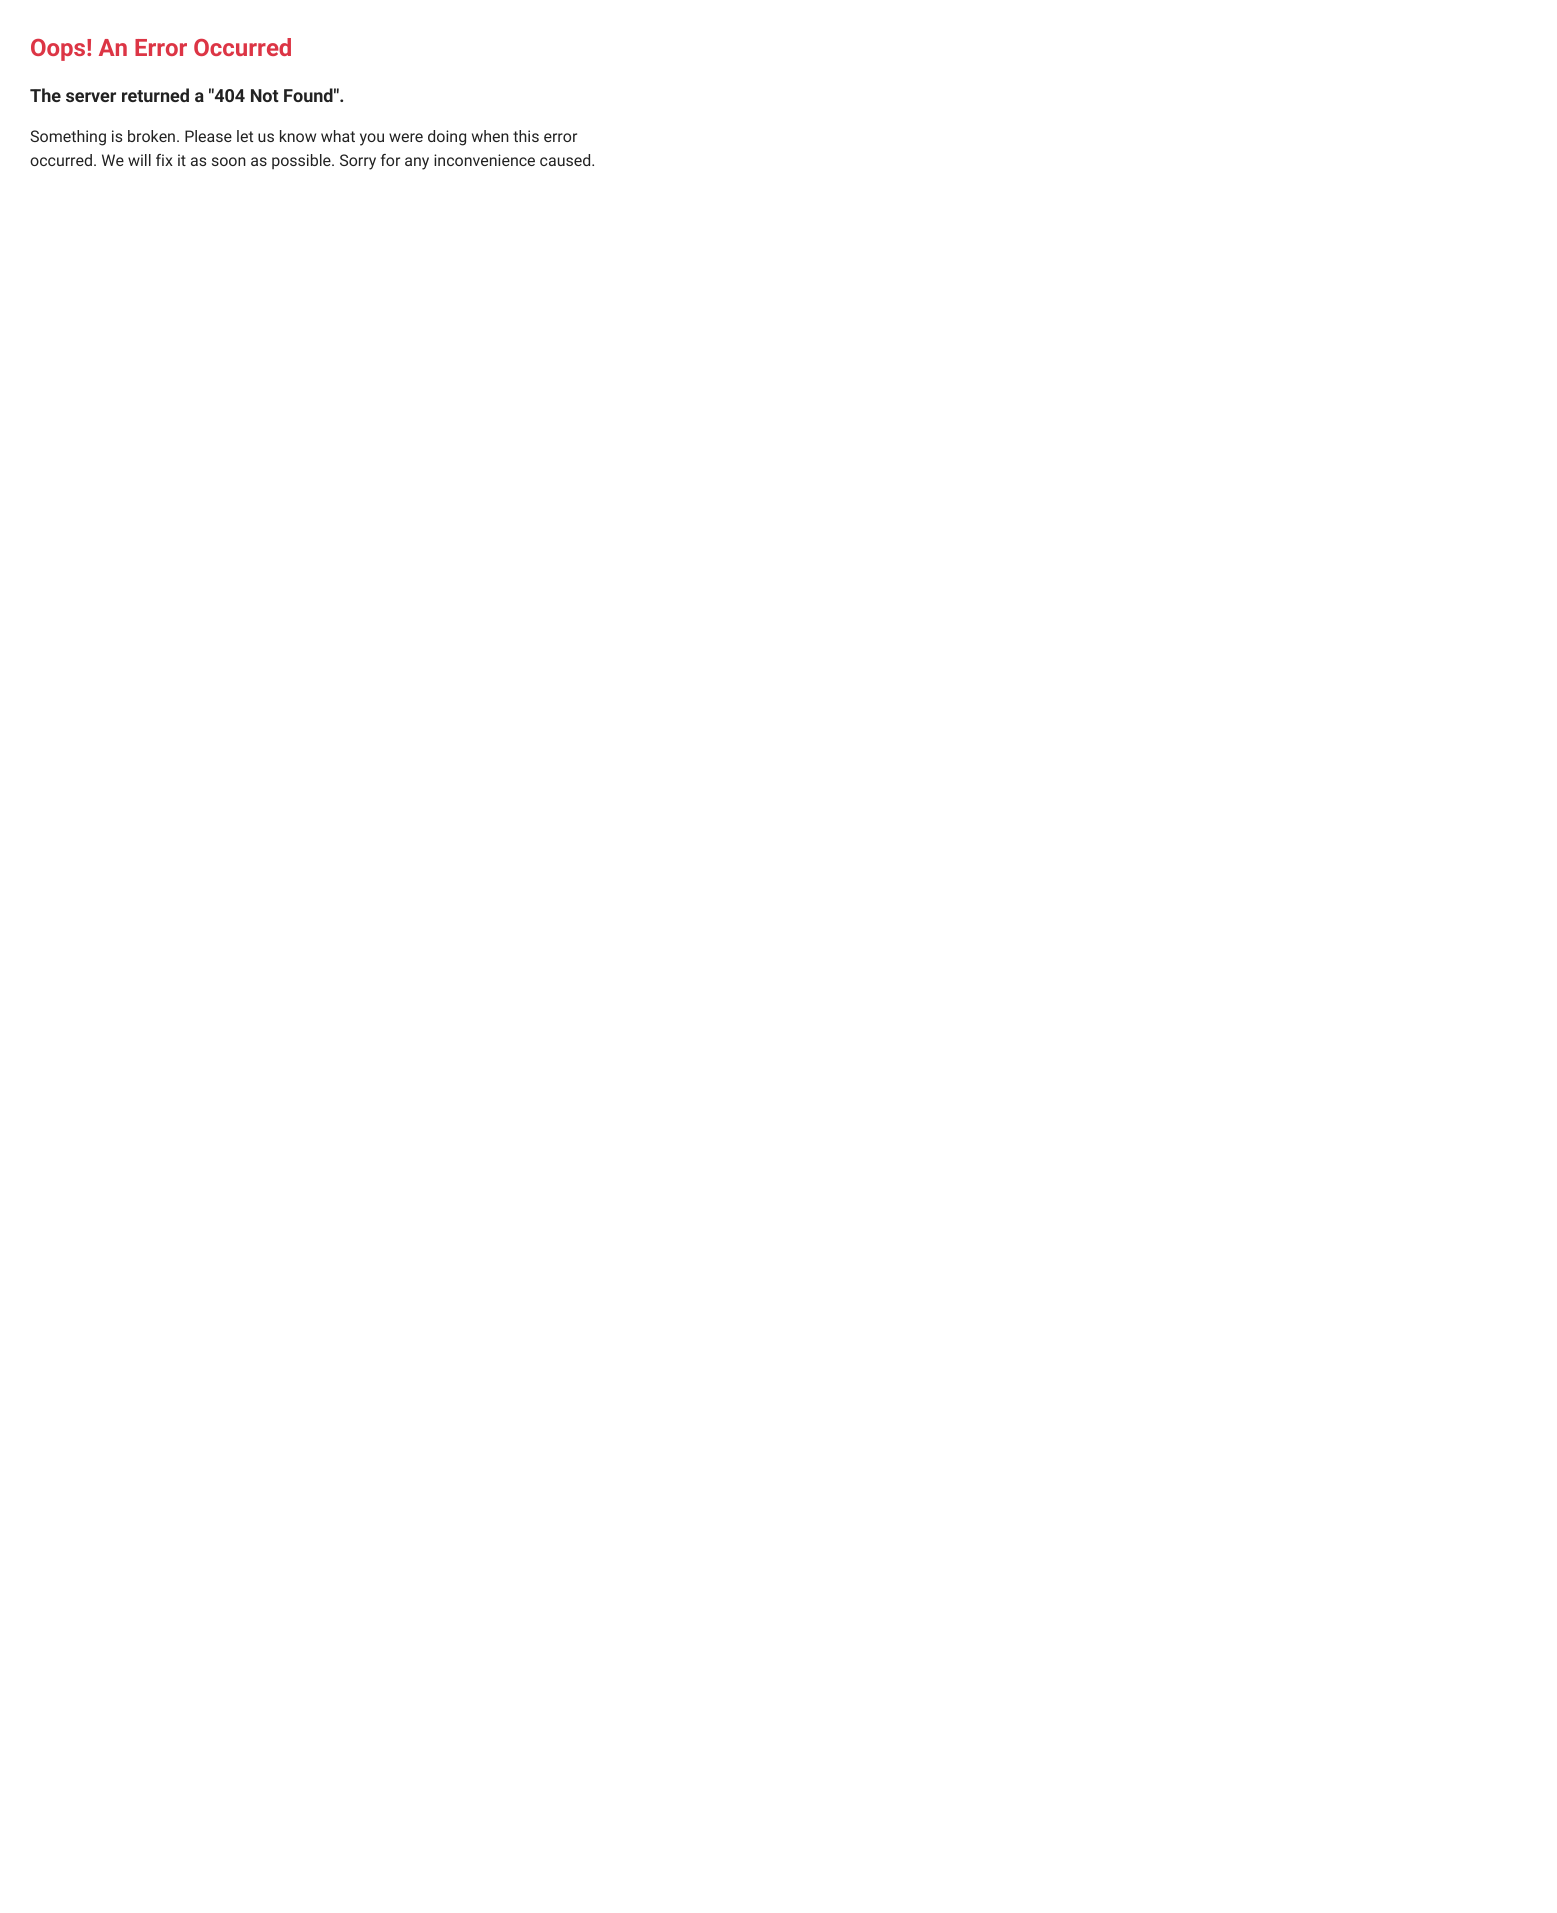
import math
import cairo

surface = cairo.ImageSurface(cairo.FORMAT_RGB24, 1557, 1913)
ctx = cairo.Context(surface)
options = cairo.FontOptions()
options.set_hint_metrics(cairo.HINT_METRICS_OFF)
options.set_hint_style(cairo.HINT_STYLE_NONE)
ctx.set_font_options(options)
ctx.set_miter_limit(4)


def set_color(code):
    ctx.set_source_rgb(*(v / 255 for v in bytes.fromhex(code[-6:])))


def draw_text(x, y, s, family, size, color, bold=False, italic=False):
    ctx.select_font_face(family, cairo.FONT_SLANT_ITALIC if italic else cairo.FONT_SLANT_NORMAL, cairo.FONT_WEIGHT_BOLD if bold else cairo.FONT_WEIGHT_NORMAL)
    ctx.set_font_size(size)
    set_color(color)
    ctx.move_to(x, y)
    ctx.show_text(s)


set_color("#ffffff")
ctx.paint()
draw_text(30, 56, "Oops! An Error Occurred", "Roboto", 24, "#dc3545", bold=True)
draw_text(30, 102, "The server returned a \"404 Not Found\".", "Roboto", 18, "#222222", bold=True)
draw_text(30, 142, "Something is broken. Please let us know what you were doing when this error", "Roboto", 16, "#222222")
draw_text(30, 166, "occurred. We will fix it as soon as possible. Sorry for any inconvenience caused.", "Roboto", 16, "#222222")
surface.write_to_png("output.png")
